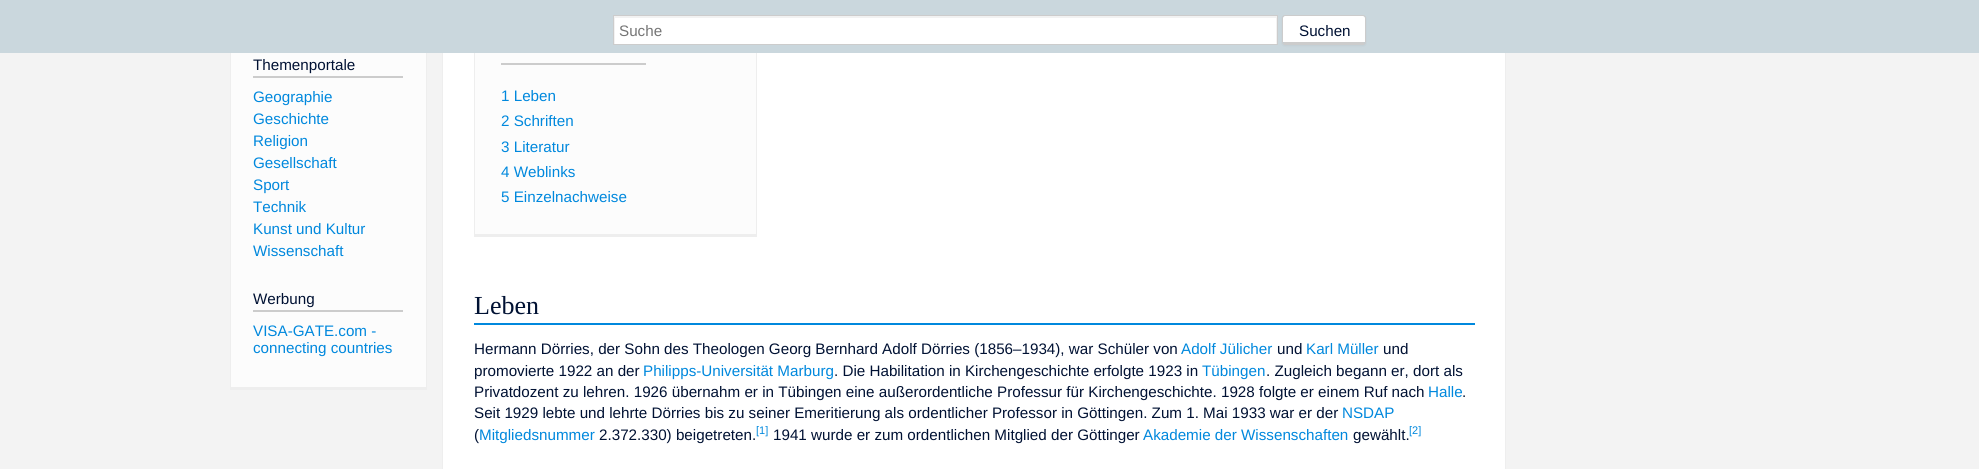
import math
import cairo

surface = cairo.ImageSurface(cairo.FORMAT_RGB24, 1979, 469)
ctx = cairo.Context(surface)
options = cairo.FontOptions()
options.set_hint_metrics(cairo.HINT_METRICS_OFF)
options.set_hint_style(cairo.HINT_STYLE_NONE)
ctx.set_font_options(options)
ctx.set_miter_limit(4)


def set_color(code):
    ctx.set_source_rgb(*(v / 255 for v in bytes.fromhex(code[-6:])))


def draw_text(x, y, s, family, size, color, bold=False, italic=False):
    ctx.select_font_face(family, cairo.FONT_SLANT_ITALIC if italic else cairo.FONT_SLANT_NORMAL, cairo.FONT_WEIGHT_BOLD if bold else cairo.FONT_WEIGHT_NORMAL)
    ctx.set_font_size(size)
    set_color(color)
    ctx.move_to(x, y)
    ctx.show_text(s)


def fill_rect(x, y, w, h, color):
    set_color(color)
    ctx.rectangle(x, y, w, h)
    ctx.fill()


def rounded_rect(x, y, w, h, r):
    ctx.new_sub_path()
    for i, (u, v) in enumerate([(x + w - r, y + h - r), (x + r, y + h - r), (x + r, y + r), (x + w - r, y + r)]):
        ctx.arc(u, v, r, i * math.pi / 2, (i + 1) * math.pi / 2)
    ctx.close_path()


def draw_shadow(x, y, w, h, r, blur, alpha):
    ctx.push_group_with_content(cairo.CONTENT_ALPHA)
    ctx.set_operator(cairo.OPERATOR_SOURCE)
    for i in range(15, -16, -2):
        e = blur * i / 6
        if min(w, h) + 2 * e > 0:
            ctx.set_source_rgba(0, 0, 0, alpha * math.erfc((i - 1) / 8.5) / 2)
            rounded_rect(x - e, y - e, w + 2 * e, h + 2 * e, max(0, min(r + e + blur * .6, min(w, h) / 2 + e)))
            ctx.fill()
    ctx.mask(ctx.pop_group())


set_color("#f3f3f3")
ctx.paint()
fill_rect(0, 0, 1979, 53, "#cad7dd")
fill_rect(615, 18, 661, 26, "#ffffff")
ctx.save()
ctx.rectangle(614, 16, 663, 28)
ctx.clip()
set_color("#f2f2f2")
ctx.set_fill_rule(cairo.FILL_RULE_EVEN_ODD)
ctx.new_path()
ctx.move_to(515, -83)
ctx.line_to(1376, -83)
ctx.line_to(1376, 143)
ctx.line_to(515, 143)
ctx.close_path()
ctx.move_to(615, 18)
ctx.line_to(1276, 18)
ctx.line_to(1276, 44)
ctx.line_to(615, 44)
ctx.close_path()
ctx.fill()
ctx.restore()
ctx.rectangle(613.5, 15.5, 664, 29)
set_color("#cccccc")
ctx.set_line_width(1)
ctx.stroke()
draw_text(619, 36, "Suche", "Liberation Sans", 15.2, "#757575")
set_color("#000000")
draw_shadow(1282, 16, 84, 30, 3, 1, 0.05)
set_color("#ffffff")
ctx.new_path()
ctx.move_to(1285, 16)
ctx.line_to(1363, 16)
ctx.curve_to(1364, 16, 1365, 17, 1365, 18)
ctx.line_to(1365, 42)
ctx.line_to(1363, 42)
ctx.line_to(1283, 42)
ctx.line_to(1283, 18)
ctx.curve_to(1283, 17, 1284, 16, 1285, 16)
ctx.close_path()
ctx.fill()
rounded_rect(1282.5, 15.5, 83, 29, 2.5)
set_color("#cccccc")
ctx.stroke()
fill_rect(1284, 42, 80, 2, "#cccccc")
draw_text(1299, 36, "Suchen", "Liberation Sans", 15.2, "#001133")
fill_rect(231, 53, 195, 334, "#fcfcfc")
fill_rect(426, 53, 1, 337, "#eeeeee")
fill_rect(230, 387, 197, 3, "#eeeeee")
fill_rect(230, 53, 1, 337, "#eeeeee")
fill_rect(253, 76, 150, 2, "#cccccc")
draw_text(253, 70, "Themenportale", "Liberation Sans", 15.2, "#001133")
draw_text(253, 102, "Geographie", "Liberation Sans", 15.2, "#0088dd")
draw_text(253, 124, "Geschichte", "Liberation Sans", 15.2, "#0088dd")
draw_text(253, 146, "Religion", "Liberation Sans", 15.2, "#0088dd")
draw_text(253, 168, "Gesellschaft", "Liberation Sans", 15.2, "#0088dd")
draw_text(253, 190, "Sport", "Liberation Sans", 15.2, "#0088dd")
draw_text(253, 212, "Technik", "Liberation Sans", 15.2, "#0088dd")
draw_text(253, 234, "Kunst und Kultur", "Liberation Sans", 15.2, "#0088dd")
draw_text(253, 256, "Wissenschaft", "Liberation Sans", 15.2, "#0088dd")
fill_rect(253, 310, 150, 2, "#cccccc")
draw_text(253, 304, "Werbung", "Liberation Sans", 15.2, "#001133")
draw_text(253, 336, "VISA-GATE.com -", "Liberation Sans", 15.2, "#0088dd")
draw_text(253, 353, "connecting countries", "Liberation Sans", 15.2, "#0088dd")
fill_rect(443, 53, 1062, 416, "#ffffff")
fill_rect(1505, 53, 1, 416, "#eeeeee")
fill_rect(442, 53, 1, 416, "#eeeeee")
fill_rect(475, 53, 281, 181, "#fcfcfc")
fill_rect(756, 53, 1, 184, "#eeeeee")
fill_rect(474, 234, 283, 3, "#eeeeee")
fill_rect(474, 53, 1, 184, "#eeeeee")
fill_rect(501, 63, 145, 2, "#cccccc")
draw_text(501, 101, "1 Leben", "Liberation Sans", 15.2, "#0088dd")
draw_text(501, 126, "2 Schriften", "Liberation Sans", 15.2, "#0088dd")
draw_text(501, 152, "3 Literatur", "Liberation Sans", 15.2, "#0088dd")
draw_text(501, 177, "4 Weblinks", "Liberation Sans", 15.2, "#0088dd")
draw_text(501, 202, "5 Einzelnachweise", "Liberation Sans", 15.2, "#0088dd")
fill_rect(474, 323, 1001, 2, "#0088dd")
draw_text(474, 314, "Leben", "Liberation Serif", 26, "#001133")
draw_text(474, 354, "Hermann Dörries, der Sohn des Theologen Georg Bernhard Adolf Dörries (1856–1934), war Schüler von", "Liberation Sans", 15.2, "#001133")
draw_text(1181, 354, "Adolf Jülicher", "Liberation Sans", 15.2, "#0088dd")
draw_text(1277, 354, "und", "Liberation Sans", 15.2, "#001133")
draw_text(1306, 354, "Karl Müller", "Liberation Sans", 15.2, "#0088dd")
draw_text(1383, 354, "und", "Liberation Sans", 15.2, "#001133")
draw_text(474, 376, "promovierte 1922 an der", "Liberation Sans", 15.2, "#001133")
draw_text(643, 376, "Philipps-Universität Marburg", "Liberation Sans", 15.2, "#0088dd")
draw_text(834, 376, ". Die Habilitation in Kirchengeschichte erfolgte 1923 in", "Liberation Sans", 15.2, "#001133")
draw_text(1202, 376, "Tübingen", "Liberation Sans", 15.2, "#0088dd")
draw_text(1266, 376, ". Zugleich begann er, dort als", "Liberation Sans", 15.2, "#001133")
draw_text(474, 397, "Privatdozent zu lehren. 1926 übernahm er in Tübingen eine außerordentliche Professur für Kirchengeschichte. 1928 folgte er einem Ruf nach", "Liberation Sans", 15.2, "#001133")
draw_text(1428, 397, "Halle", "Liberation Sans", 15.2, "#0088dd")
draw_text(1462, 397, ".", "Liberation Sans", 15.2, "#001133")
draw_text(474, 418, "Seit 1929 lebte und lehrte Dörries bis zu seiner Emeritierung als ordentlicher Professor in Göttingen. Zum 1. Mai 1933 war er der", "Liberation Sans", 15.2, "#001133")
draw_text(1342, 418, "NSDAP", "Liberation Sans", 15.2, "#0088dd")
draw_text(474, 440, "(", "Liberation Sans", 15.2, "#001133")
draw_text(479, 440, "Mitgliedsnummer", "Liberation Sans", 15.2, "#0088dd")
draw_text(599, 440, "2.372.330) beigetreten.", "Liberation Sans", 15.2, "#001133")
draw_text(756, 434, "[1]", "Liberation Sans", 11, "#0088dd")
draw_text(773, 440, "1941 wurde er zum ordentlichen Mitglied der Göttinger", "Liberation Sans", 15.2, "#001133")
draw_text(1143, 440, "Akademie der Wissenschaften", "Liberation Sans", 15.2, "#0088dd")
draw_text(1353, 440, "gewählt.", "Liberation Sans", 15.2, "#001133")
draw_text(1409, 434, "[2]", "Liberation Sans", 11, "#0088dd")
surface.write_to_png("output.png")
